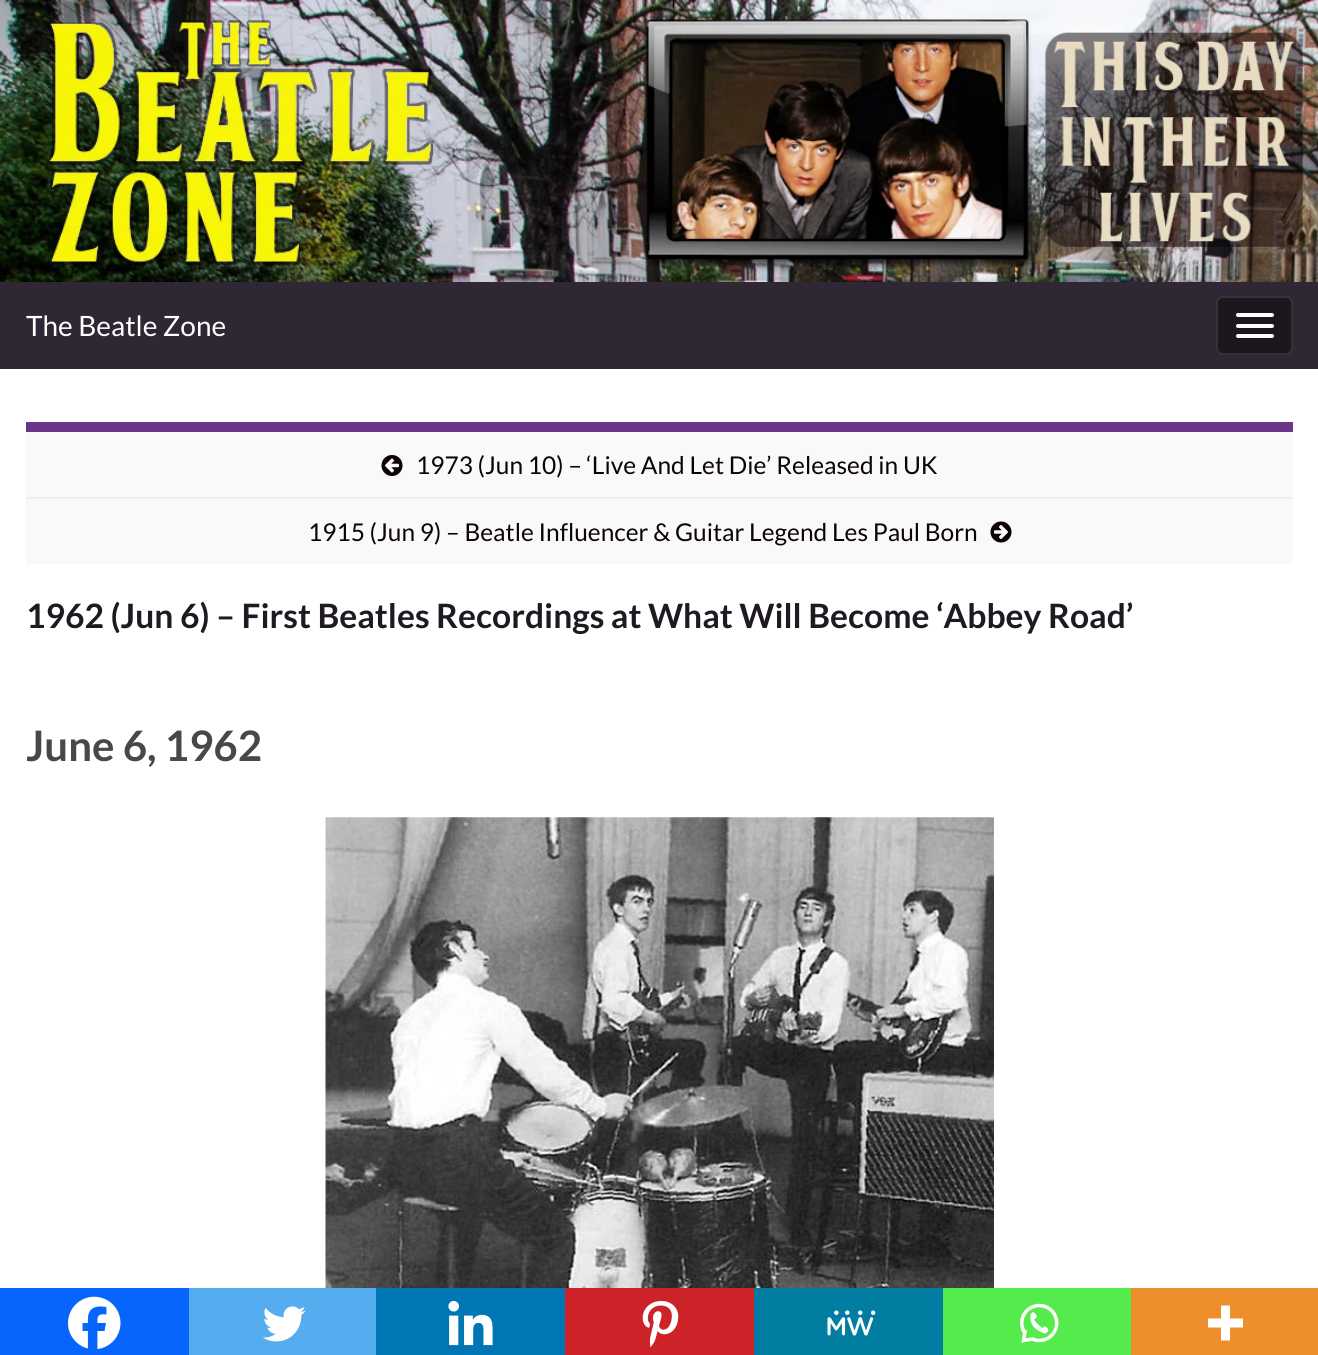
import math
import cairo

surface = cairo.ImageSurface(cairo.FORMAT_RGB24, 1318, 1355)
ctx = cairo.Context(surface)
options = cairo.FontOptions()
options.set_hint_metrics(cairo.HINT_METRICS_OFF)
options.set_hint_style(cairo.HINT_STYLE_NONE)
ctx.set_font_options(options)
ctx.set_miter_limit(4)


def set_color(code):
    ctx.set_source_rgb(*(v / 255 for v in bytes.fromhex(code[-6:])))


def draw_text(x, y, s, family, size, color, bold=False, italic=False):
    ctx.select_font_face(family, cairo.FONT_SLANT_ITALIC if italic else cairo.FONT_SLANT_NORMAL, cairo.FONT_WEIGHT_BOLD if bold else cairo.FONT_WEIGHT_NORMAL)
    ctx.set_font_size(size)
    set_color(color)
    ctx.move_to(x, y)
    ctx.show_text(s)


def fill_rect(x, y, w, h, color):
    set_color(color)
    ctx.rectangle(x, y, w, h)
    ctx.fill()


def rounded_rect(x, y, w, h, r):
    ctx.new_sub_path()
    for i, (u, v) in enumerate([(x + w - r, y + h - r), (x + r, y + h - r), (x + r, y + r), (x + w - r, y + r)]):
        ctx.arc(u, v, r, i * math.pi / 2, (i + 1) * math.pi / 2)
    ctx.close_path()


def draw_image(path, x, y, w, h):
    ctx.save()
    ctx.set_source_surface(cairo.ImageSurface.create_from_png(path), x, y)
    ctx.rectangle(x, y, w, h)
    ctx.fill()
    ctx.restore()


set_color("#ffffff")
ctx.paint()
draw_image("assets/img1.png", 0, 0, 1318, 282)
draw_image("assets/img2.png", 49, 19, 1254, 250)
fill_rect(0, 282, 1318, 87, "#2f2733")
draw_text(26, 336, "The Beatle Zone", "Lato", 28, "#ffffff")
set_color("#1c171f")
rounded_rect(1217, 297, 75, 57, 6)
ctx.fill_preserve()
set_color("#333333")
ctx.stroke()
set_color("#ffffff")
rounded_rect(1236, 313, 38, 4, 2)
ctx.fill()
rounded_rect(1236, 324, 38, 4, 2)
ctx.fill()
rounded_rect(1236, 334, 38, 4, 2)
ctx.fill()
fill_rect(26, 432, 1267, 132, "#f9f9f9")
fill_rect(26, 422, 1267, 10, "#6b3589")
draw_image("assets/img3.png", 381, 455, 22, 21)
draw_text(416, 474, "1973 (Jun 10) – ‘Live And Let Die’ Released in UK", "Lato", 24.5, "#0c0305")
fill_rect(26, 497, 1267, 2, "#eeeeee")
draw_text(308, 541, "1915 (Jun 9) – Beatle Influencer & Guitar Legend Les Paul Born", "Lato", 24.5, "#0c0305")
draw_image("assets/img4.png", 990, 521, 22, 22)
draw_text(26, 628, "1962 (Jun 6) – First Beatles Recordings at What Will Become ‘Abbey Road’", "Lato", 33.6, "#1f1a22", bold=True)
draw_text(26, 761, "June 6, 1962", "Lato", 42, "#4a474b", bold=True)
draw_image("assets/img5.png", 325, 817, 669, 471)
fill_rect(0, 1288, 189, 67, "#0765fe")
draw_image("assets/img6.png", 68, 1296, 53, 53)
fill_rect(189, 1288, 187, 67, "#55acee")
draw_image("assets/img7.png", 262, 1306, 44, 36)
fill_rect(376, 1288, 189, 67, "#0077b5")
draw_image("assets/img8.png", 448, 1300, 45, 46)
fill_rect(565, 1288, 189, 67, "#cc2329")
draw_image("assets/img9.png", 642, 1301, 37, 46)
fill_rect(754, 1288, 189, 67, "#007da1")
draw_image("assets/img10.png", 827, 1310, 49, 26)
fill_rect(943, 1288, 188, 67, "#55eb4c")
draw_image("assets/img11.png", 1020, 1303, 39, 40)
fill_rect(1131, 1288, 187, 67, "#ee8e2d")
set_color("#ffffff")
ctx.set_fill_rule(cairo.FILL_RULE_EVEN_ODD)
ctx.new_path()
ctx.move_to(1230, 1318.5)
ctx.line_to(1230, 1305.5)
ctx.line_to(1221, 1305.5)
ctx.line_to(1221, 1318.5)
ctx.line_to(1208, 1318.5)
ctx.line_to(1208, 1327.5)
ctx.line_to(1221, 1327.5)
ctx.line_to(1221, 1340.5)
ctx.line_to(1230, 1340.5)
ctx.line_to(1230, 1327.5)
ctx.line_to(1243, 1327.5)
ctx.line_to(1243, 1318.5)
ctx.close_path()
ctx.fill()
surface.write_to_png("output.png")
